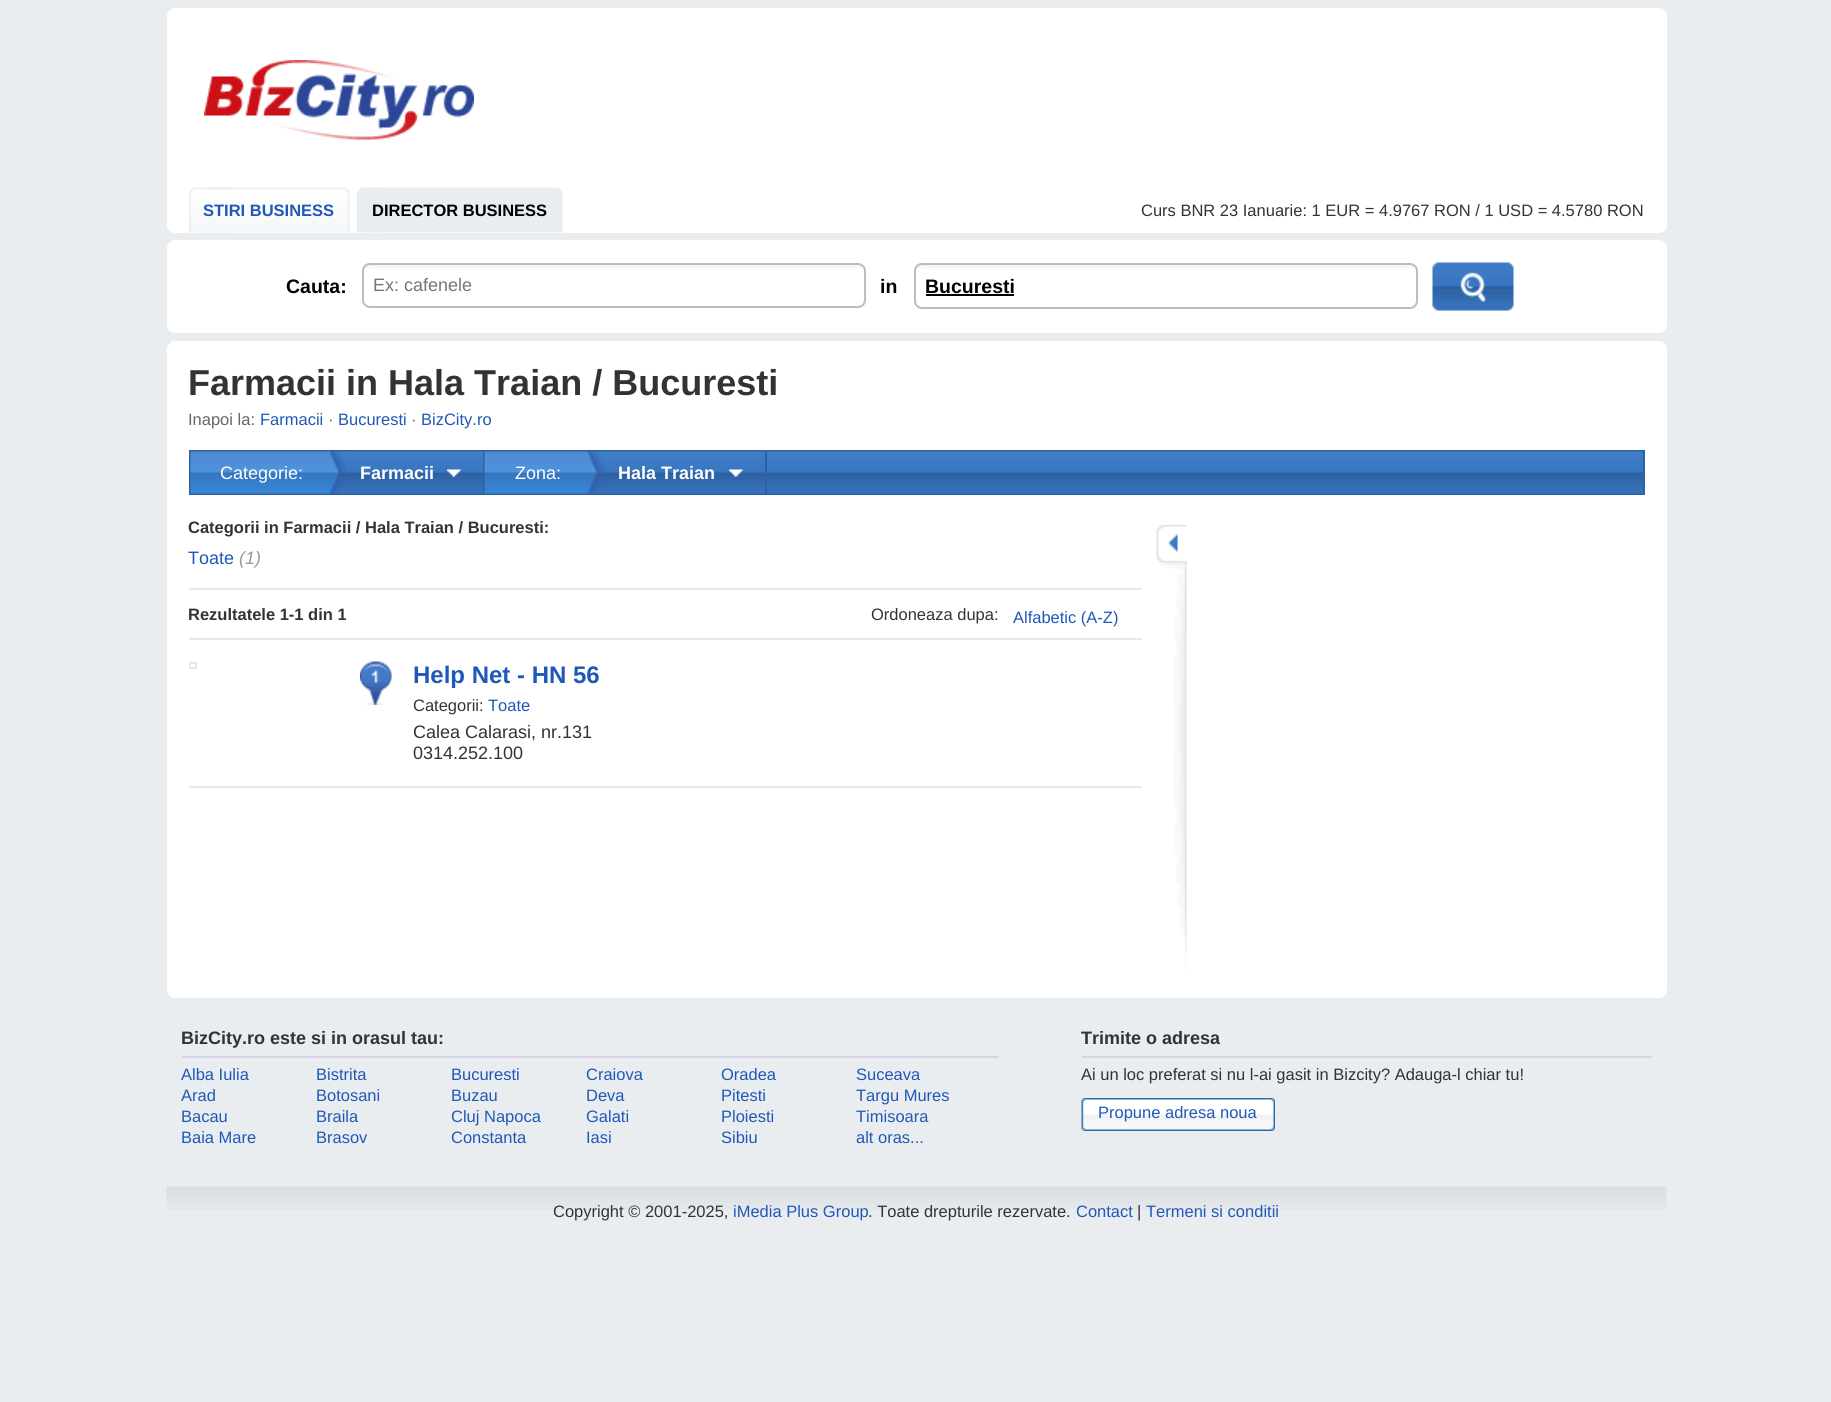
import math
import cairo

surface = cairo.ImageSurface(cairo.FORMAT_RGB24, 1831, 1402)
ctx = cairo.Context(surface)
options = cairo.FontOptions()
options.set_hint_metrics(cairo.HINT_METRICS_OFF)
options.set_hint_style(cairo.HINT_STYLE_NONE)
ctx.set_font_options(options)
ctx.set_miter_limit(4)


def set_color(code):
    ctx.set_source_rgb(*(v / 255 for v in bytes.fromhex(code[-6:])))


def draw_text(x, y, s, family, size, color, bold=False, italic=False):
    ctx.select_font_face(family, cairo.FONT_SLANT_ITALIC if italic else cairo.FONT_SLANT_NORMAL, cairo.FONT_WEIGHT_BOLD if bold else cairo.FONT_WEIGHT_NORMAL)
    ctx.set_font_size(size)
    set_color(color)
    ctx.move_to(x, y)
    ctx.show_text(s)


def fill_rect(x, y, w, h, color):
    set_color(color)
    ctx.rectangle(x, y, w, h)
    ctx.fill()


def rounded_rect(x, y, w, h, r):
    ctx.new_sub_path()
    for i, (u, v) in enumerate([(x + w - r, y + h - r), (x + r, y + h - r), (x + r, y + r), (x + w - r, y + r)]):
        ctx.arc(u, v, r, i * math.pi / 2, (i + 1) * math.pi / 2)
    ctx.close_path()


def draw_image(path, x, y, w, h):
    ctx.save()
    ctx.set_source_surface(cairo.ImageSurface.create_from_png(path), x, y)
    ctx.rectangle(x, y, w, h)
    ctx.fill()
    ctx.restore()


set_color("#e9edf0")
ctx.paint()
set_color("#ffffff")
rounded_rect(167, 8, 1500, 225, 8)
ctx.fill()
draw_image("assets/img1.png", 204, 60, 270, 80)
draw_image("assets/img2.png", 189, 187, 44, 46)
draw_image("assets/img3.png", 204, 187, 146, 46)
draw_text(203, 216, "STIRI BUSINESS", "Liberation Sans", 16.5, "#1f58b8", bold=True)
draw_image("assets/img4.png", 357, 187, 21, 46)
draw_image("assets/img5.png", 372, 187, 191, 46)
draw_text(372, 216, "DIRECTOR BUSINESS", "Liberation Sans", 16.5, "#000000", bold=True)
draw_text(1141, 216, "Curs BNR 23 Ianuarie: 1 EUR = 4.9767 RON / 1 USD = 4.5780 RON", "Liberation Sans", 16.5, "#333333")
set_color("#ffffff")
rounded_rect(167, 240, 1500, 93, 8)
ctx.fill()
draw_text(286, 293, "Cauta:", "Liberation Sans", 19.5, "#000000", bold=True)
draw_image("assets/img6.png", 362, 264, 503, 5)
rounded_rect(363, 264, 502, 43, 7)
set_color("#bcbcc2")
ctx.stroke()
draw_text(373, 291, "Ex: cafenele", "Liberation Sans", 18, "#757575")
draw_text(880, 293, "in", "Liberation Sans", 19.5, "#000000", bold=True)
draw_image("assets/img6.png", 914, 264, 503, 5)
rounded_rect(915, 264, 502, 44, 7)
set_color("#bcbcc2")
ctx.stroke()
draw_text(925, 293, "Bucuresti", "Liberation Sans", 19.5, "#000000", bold=True)
fill_rect(926, 294, 88, 2, "#000000")
draw_image("assets/img7.png", 1432, 262, 82, 49)
set_color("#ffffff")
rounded_rect(167, 341, 1500, 657, 8)
ctx.fill()
draw_text(188, 395, "Farmacii in Hala Traian / Bucuresti", "Liberation Sans", 36, "#333333", bold=True)
draw_text(188, 425, "Inapoi la:", "Liberation Sans", 16.5, "#666666")
draw_text(260, 425, "Farmacii", "Liberation Sans", 16.5, "#1f58b8")
draw_text(328, 425, "·", "Liberation Sans", 16.5, "#666666")
draw_text(338, 425, "Bucuresti", "Liberation Sans", 16.5, "#1f58b8")
draw_text(411, 425, "·", "Liberation Sans", 16.5, "#666666")
draw_text(421, 425, "BizCity.ro", "Liberation Sans", 16.5, "#1f58b8")
draw_image("assets/img8.png", 329, 450, 1314, 45)
fill_rect(1643, 450, 2, 45, "#2e61a1")
fill_rect(189, 450, 2, 45, "#2e61a1")
draw_image("assets/img9.png", 190, 450, 156, 45)
draw_text(220, 479, "Categorie:", "Liberation Sans", 18, "#ffffff")
fill_rect(483, 450, 2, 45, "#2e61a1")
draw_text(360, 479, "Farmacii", "Liberation Sans", 18, "#ffffff", bold=True)
draw_image("assets/img10.png", 447, 469, 14, 8)
draw_image("assets/img11.png", 484, 450, 121, 45)
draw_text(515, 479, "Zona:", "Liberation Sans", 18, "#ffffff")
fill_rect(765, 450, 2, 45, "#2e61a1")
draw_text(618, 479, "Hala Traian", "Liberation Sans", 18, "#ffffff", bold=True)
draw_image("assets/img10.png", 729, 469, 14, 8)
draw_text(188, 533, "Categorii in Farmacii / Hala Traian / Bucuresti:", "Liberation Sans", 16.5, "#333333", bold=True)
draw_text(188, 564, "Toate", "Liberation Sans", 18, "#1f58b8")
draw_text(239, 564, "(1)", "Liberation Sans", 18, "#999999", italic=True)
fill_rect(189, 588, 953, 2, "#e8e8e8")
fill_rect(189, 638, 953, 2, "#e8e8e8")
draw_text(188, 620, "Rezultatele 1-1 din 1", "Liberation Sans", 16.5, "#333333", bold=True)
draw_text(871, 620, "Ordoneaza dupa:", "Liberation Sans", 16.5, "#333333")
draw_text(1013, 623, "Alfabetic (A-Z)", "Liberation Sans", 16.5, "#1f58b8")
fill_rect(189, 786, 953, 2, "#e8e8e8")
ctx.rectangle(190, 663, 6, 5)
ctx.stroke()
draw_image("assets/img12.png", 360, 661, 32, 44)
draw_text(413, 683, "Help Net - HN 56", "Liberation Sans", 24, "#1f58b8", bold=True)
draw_text(413, 711, "Categorii:", "Liberation Sans", 16.5, "#333333")
draw_text(488, 711, "Toate", "Liberation Sans", 16.5, "#1f58b8")
draw_text(413, 738, "Calea Calarasi, nr.131", "Liberation Sans", 18, "#333333")
draw_text(413, 759, "0314.252.100", "Liberation Sans", 18, "#333333")
draw_image("assets/img13.png", 1156, 525, 31, 448)
fill_rect(182, 1056, 817, 2, "#d4d4e5")
draw_text(181, 1044, "BizCity.ro este si in orasul tau:", "Liberation Sans", 18, "#333333", bold=True)
draw_text(181, 1080, "Alba Iulia", "Liberation Sans", 16.5, "#1f58b8")
draw_text(181, 1101, "Arad", "Liberation Sans", 16.5, "#1f58b8")
draw_text(181, 1122, "Bacau", "Liberation Sans", 16.5, "#1f58b8")
draw_text(181, 1143, "Baia Mare", "Liberation Sans", 16.5, "#1f58b8")
draw_text(316, 1080, "Bistrita", "Liberation Sans", 16.5, "#1f58b8")
draw_text(316, 1101, "Botosani", "Liberation Sans", 16.5, "#1f58b8")
draw_text(316, 1122, "Braila", "Liberation Sans", 16.5, "#1f58b8")
draw_text(316, 1143, "Brasov", "Liberation Sans", 16.5, "#1f58b8")
draw_text(451, 1080, "Bucuresti", "Liberation Sans", 16.5, "#1f58b8")
draw_text(451, 1101, "Buzau", "Liberation Sans", 16.5, "#1f58b8")
draw_text(451, 1122, "Cluj Napoca", "Liberation Sans", 16.5, "#1f58b8")
draw_text(451, 1143, "Constanta", "Liberation Sans", 16.5, "#1f58b8")
draw_text(586, 1080, "Craiova", "Liberation Sans", 16.5, "#1f58b8")
draw_text(586, 1101, "Deva", "Liberation Sans", 16.5, "#1f58b8")
draw_text(586, 1122, "Galati", "Liberation Sans", 16.5, "#1f58b8")
draw_text(586, 1143, "Iasi", "Liberation Sans", 16.5, "#1f58b8")
draw_text(721, 1080, "Oradea", "Liberation Sans", 16.5, "#1f58b8")
draw_text(721, 1101, "Pitesti", "Liberation Sans", 16.5, "#1f58b8")
draw_text(721, 1122, "Ploiesti", "Liberation Sans", 16.5, "#1f58b8")
draw_text(721, 1143, "Sibiu", "Liberation Sans", 16.5, "#1f58b8")
draw_text(856, 1080, "Suceava", "Liberation Sans", 16.5, "#1f58b8")
draw_text(856, 1101, "Targu Mures", "Liberation Sans", 16.5, "#1f58b8")
draw_text(856, 1122, "Timisoara", "Liberation Sans", 16.5, "#1f58b8")
draw_text(856, 1143, "alt oras...", "Liberation Sans", 16.5, "#1f58b8")
fill_rect(1082, 1056, 570, 2, "#d4d4e5")
draw_text(1081, 1044, "Trimite o adresa", "Liberation Sans", 18, "#333333", bold=True)
draw_text(1081, 1080, "Ai un loc preferat si nu l-ai gasit in Bizcity? Adauga-l chiar tu!", "Liberation Sans", 16.5, "#333333")
draw_image("assets/img14.png", 1081, 1098, 194, 33)
draw_text(1098, 1118, "Propune adresa noua", "Liberation Sans", 16.5, "#1f58b8")
draw_image("assets/img15.png", 166, 1186, 1501, 24)
draw_text(553, 1217, "Copyright © 2001-2025,", "Liberation Sans", 16.5, "#333333")
draw_text(733, 1217, "iMedia Plus Group", "Liberation Sans", 16.5, "#1f58b8")
draw_text(868, 1217, ". Toate drepturile rezervate.", "Liberation Sans", 16.5, "#333333")
draw_text(1076, 1217, "Contact", "Liberation Sans", 16.5, "#1f58b8")
draw_text(1137, 1217, "|", "Liberation Sans", 16.5, "#333333")
draw_text(1146, 1217, "Termeni si conditii", "Liberation Sans", 16.5, "#1f58b8")
surface.write_to_png("output.png")
